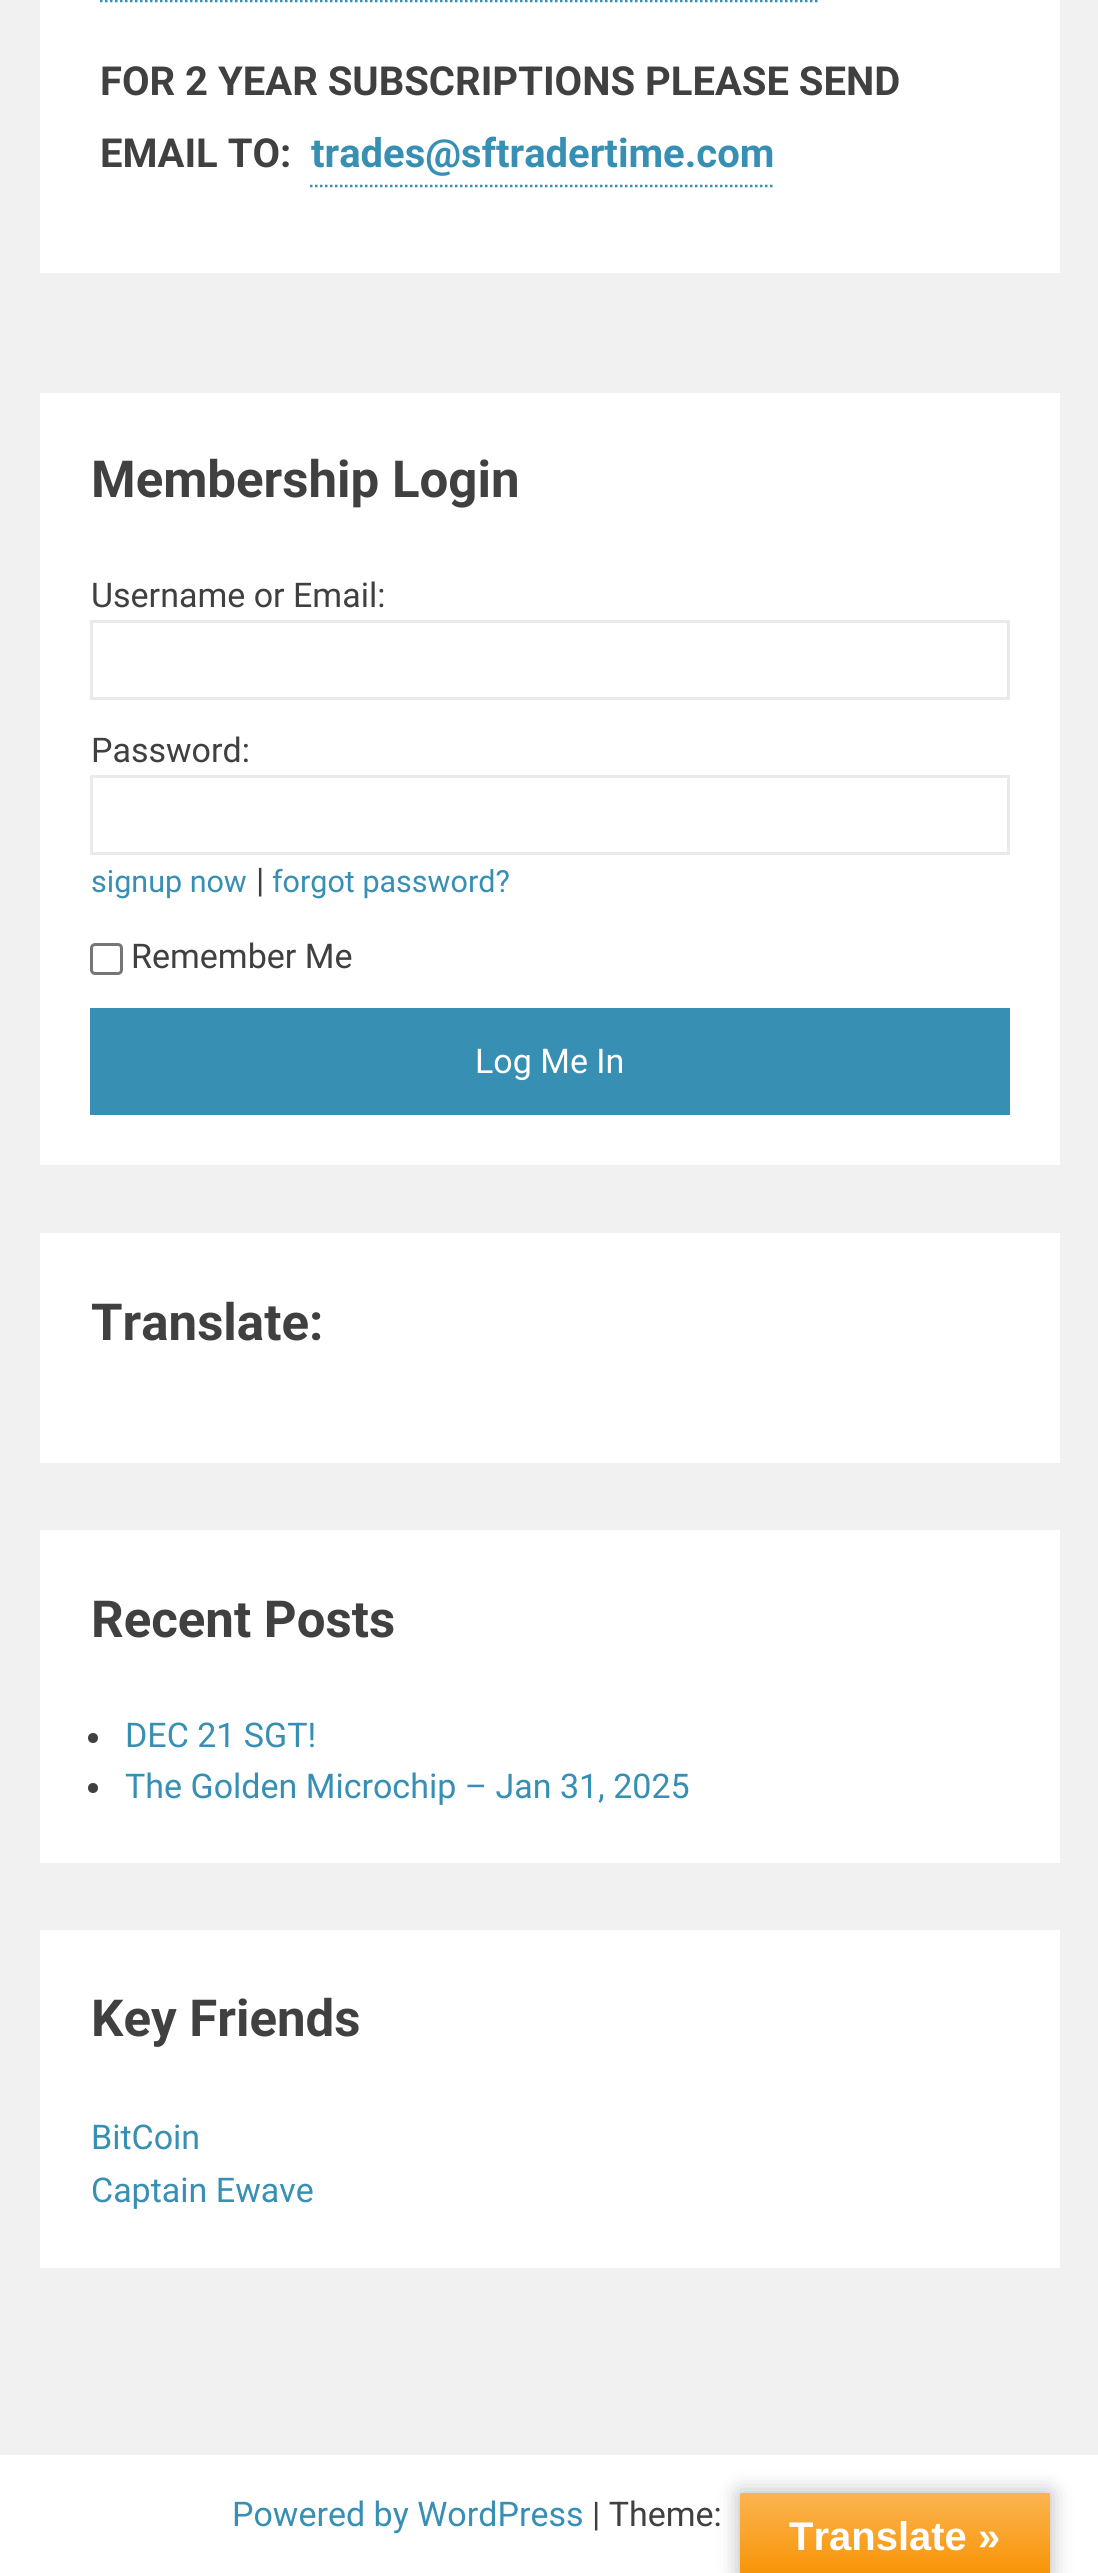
import math
import cairo

surface = cairo.ImageSurface(cairo.FORMAT_RGB24, 1098, 2573)
ctx = cairo.Context(surface)
options = cairo.FontOptions()
options.set_hint_metrics(cairo.HINT_METRICS_OFF)
options.set_hint_style(cairo.HINT_STYLE_NONE)
ctx.set_font_options(options)
ctx.set_miter_limit(4)


def set_color(code):
    ctx.set_source_rgb(*(v / 255 for v in bytes.fromhex(code[-6:])))


def draw_text(x, y, s, family, size, color, bold=False, italic=False):
    ctx.select_font_face(family, cairo.FONT_SLANT_ITALIC if italic else cairo.FONT_SLANT_NORMAL, cairo.FONT_WEIGHT_BOLD if bold else cairo.FONT_WEIGHT_NORMAL)
    ctx.set_font_size(size)
    set_color(color)
    ctx.move_to(x, y)
    ctx.show_text(s)


def fill_rect(x, y, w, h, color):
    set_color(color)
    ctx.rectangle(x, y, w, h)
    ctx.fill()


def rounded_rect(x, y, w, h, r):
    ctx.new_sub_path()
    for i, (u, v) in enumerate([(x + w - r, y + h - r), (x + r, y + h - r), (x + r, y + r), (x + w - r, y + r)]):
        ctx.arc(u, v, r, i * math.pi / 2, (i + 1) * math.pi / 2)
    ctx.close_path()


def draw_shadow(x, y, w, h, r, blur, alpha):
    ctx.push_group_with_content(cairo.CONTENT_ALPHA)
    ctx.set_operator(cairo.OPERATOR_SOURCE)
    for i in range(15, -16, -2):
        e = blur * i / 6
        if min(w, h) + 2 * e > 0:
            ctx.set_source_rgba(0, 0, 0, alpha * math.erfc((i - 1) / 8.5) / 2)
            rounded_rect(x - e, y - e, w + 2 * e, h + 2 * e, max(0, min(r + e + blur * .6, min(w, h) / 2 + e)))
            ctx.fill()
    ctx.mask(ctx.pop_group())


set_color("#f1f1f1")
ctx.paint()
fill_rect(40, 0, 1020, 273, "#ffffff")
ctx.new_path()
ctx.move_to(100, 1)
ctx.line_to(820, 1)
set_color("#378fb4")
ctx.set_line_width(2.5)
ctx.set_dash([2.5, 2.5])
ctx.stroke()
draw_text(100, 95, "FOR 2 YEAR SUBSCRIPTIONS PLEASE SEND", "Roboto", 40, "#404040", bold=True)
draw_text(100, 167, "EMAIL TO:", "Roboto", 40, "#404040", bold=True)
draw_text(311, 167, "trades@sftradertime.com", "Roboto", 40, "#378fb4", bold=True)
ctx.new_path()
ctx.move_to(310, 186)
ctx.line_to(775, 186)
ctx.stroke()
fill_rect(40, 393, 1020, 772, "#ffffff")
draw_text(91, 497, "Membership Login", "Roboto", 51, "#404040", bold=True)
draw_text(91, 607, "Username or Email:", "Roboto", 34, "#404040")
ctx.rectangle(91.5, 621.5, 917, 77)
set_color("#eaeaea")
ctx.set_line_width(3)
ctx.set_dash([])
ctx.stroke()
draw_text(91, 762, "Password:", "Roboto", 34, "#404040")
ctx.rectangle(91.5, 776.5, 917, 77)
set_color("#eaeaea")
ctx.stroke()
draw_text(91, 892, "signup now", "Roboto", 30.5, "#378fb4")
draw_text(256, 892, "|", "Roboto", 34, "#404040")
draw_text(272, 892, "forgot password?", "Roboto", 30.5, "#378fb4")
rounded_rect(91.5, 944.5, 30, 29, 3.5)
set_color("#767676")
ctx.stroke()
draw_text(131, 968, "Remember Me", "Roboto", 34, "#404040")
fill_rect(90, 1008, 920, 107, "#378fb4")
draw_text(475, 1073, "Log Me In", "Roboto", 34, "#ffffff")
fill_rect(40, 1233, 1020, 230, "#ffffff")
draw_text(91, 1340, "Translate:", "Roboto", 51, "#404040", bold=True)
fill_rect(40, 1530, 1020, 333, "#ffffff")
draw_text(91, 1637, "Recent Posts", "Roboto", 51, "#404040", bold=True)
ctx.new_path()
ctx.arc(93, 1738, 5, 0, 2 * math.pi)
ctx.fill()
draw_text(125, 1747, "DEC 21 SGT!", "Roboto", 34, "#378fb4")
set_color("#404040")
ctx.new_path()
ctx.arc(93, 1788, 5, 0, 2 * math.pi)
ctx.fill()
draw_text(125, 1798, "The Golden Microchip – Jan 31, 2025", "Roboto", 34, "#378fb4")
fill_rect(40, 1930, 1020, 338, "#ffffff")
draw_text(91, 2036, "Key Friends", "Roboto", 51, "#404040", bold=True)
draw_text(91, 2149, "BitCoin", "Roboto", 34, "#378fb4")
draw_text(91, 2202, "Captain Ewave", "Roboto", 34, "#378fb4")
fill_rect(0, 2455, 1098, 118, "#ffffff")
draw_text(232, 2526, "Powered by WordPress", "Roboto", 34, "#378fb4")
draw_text(592, 2526, "| Theme:", "Roboto", 34, "#404040")
set_color("#000000")
draw_shadow(740, 2493, 310, 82, 0, 11, 0.3)
gradient = cairo.LinearGradient(895, 2493, 895, 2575)
gradient.add_color_stop_rgba(0, 0.984, 0.706, 0.314, 1)
gradient.add_color_stop_rgba(1, 0.973, 0.58, 0.024, 1)
ctx.set_source(gradient)
ctx.rectangle(740, 2493, 310, 80)
ctx.fill()
draw_text(789, 2550, "Translate »", "Liberation Sans", 40, "#ffffff", bold=True)
surface.write_to_png("output.png")
